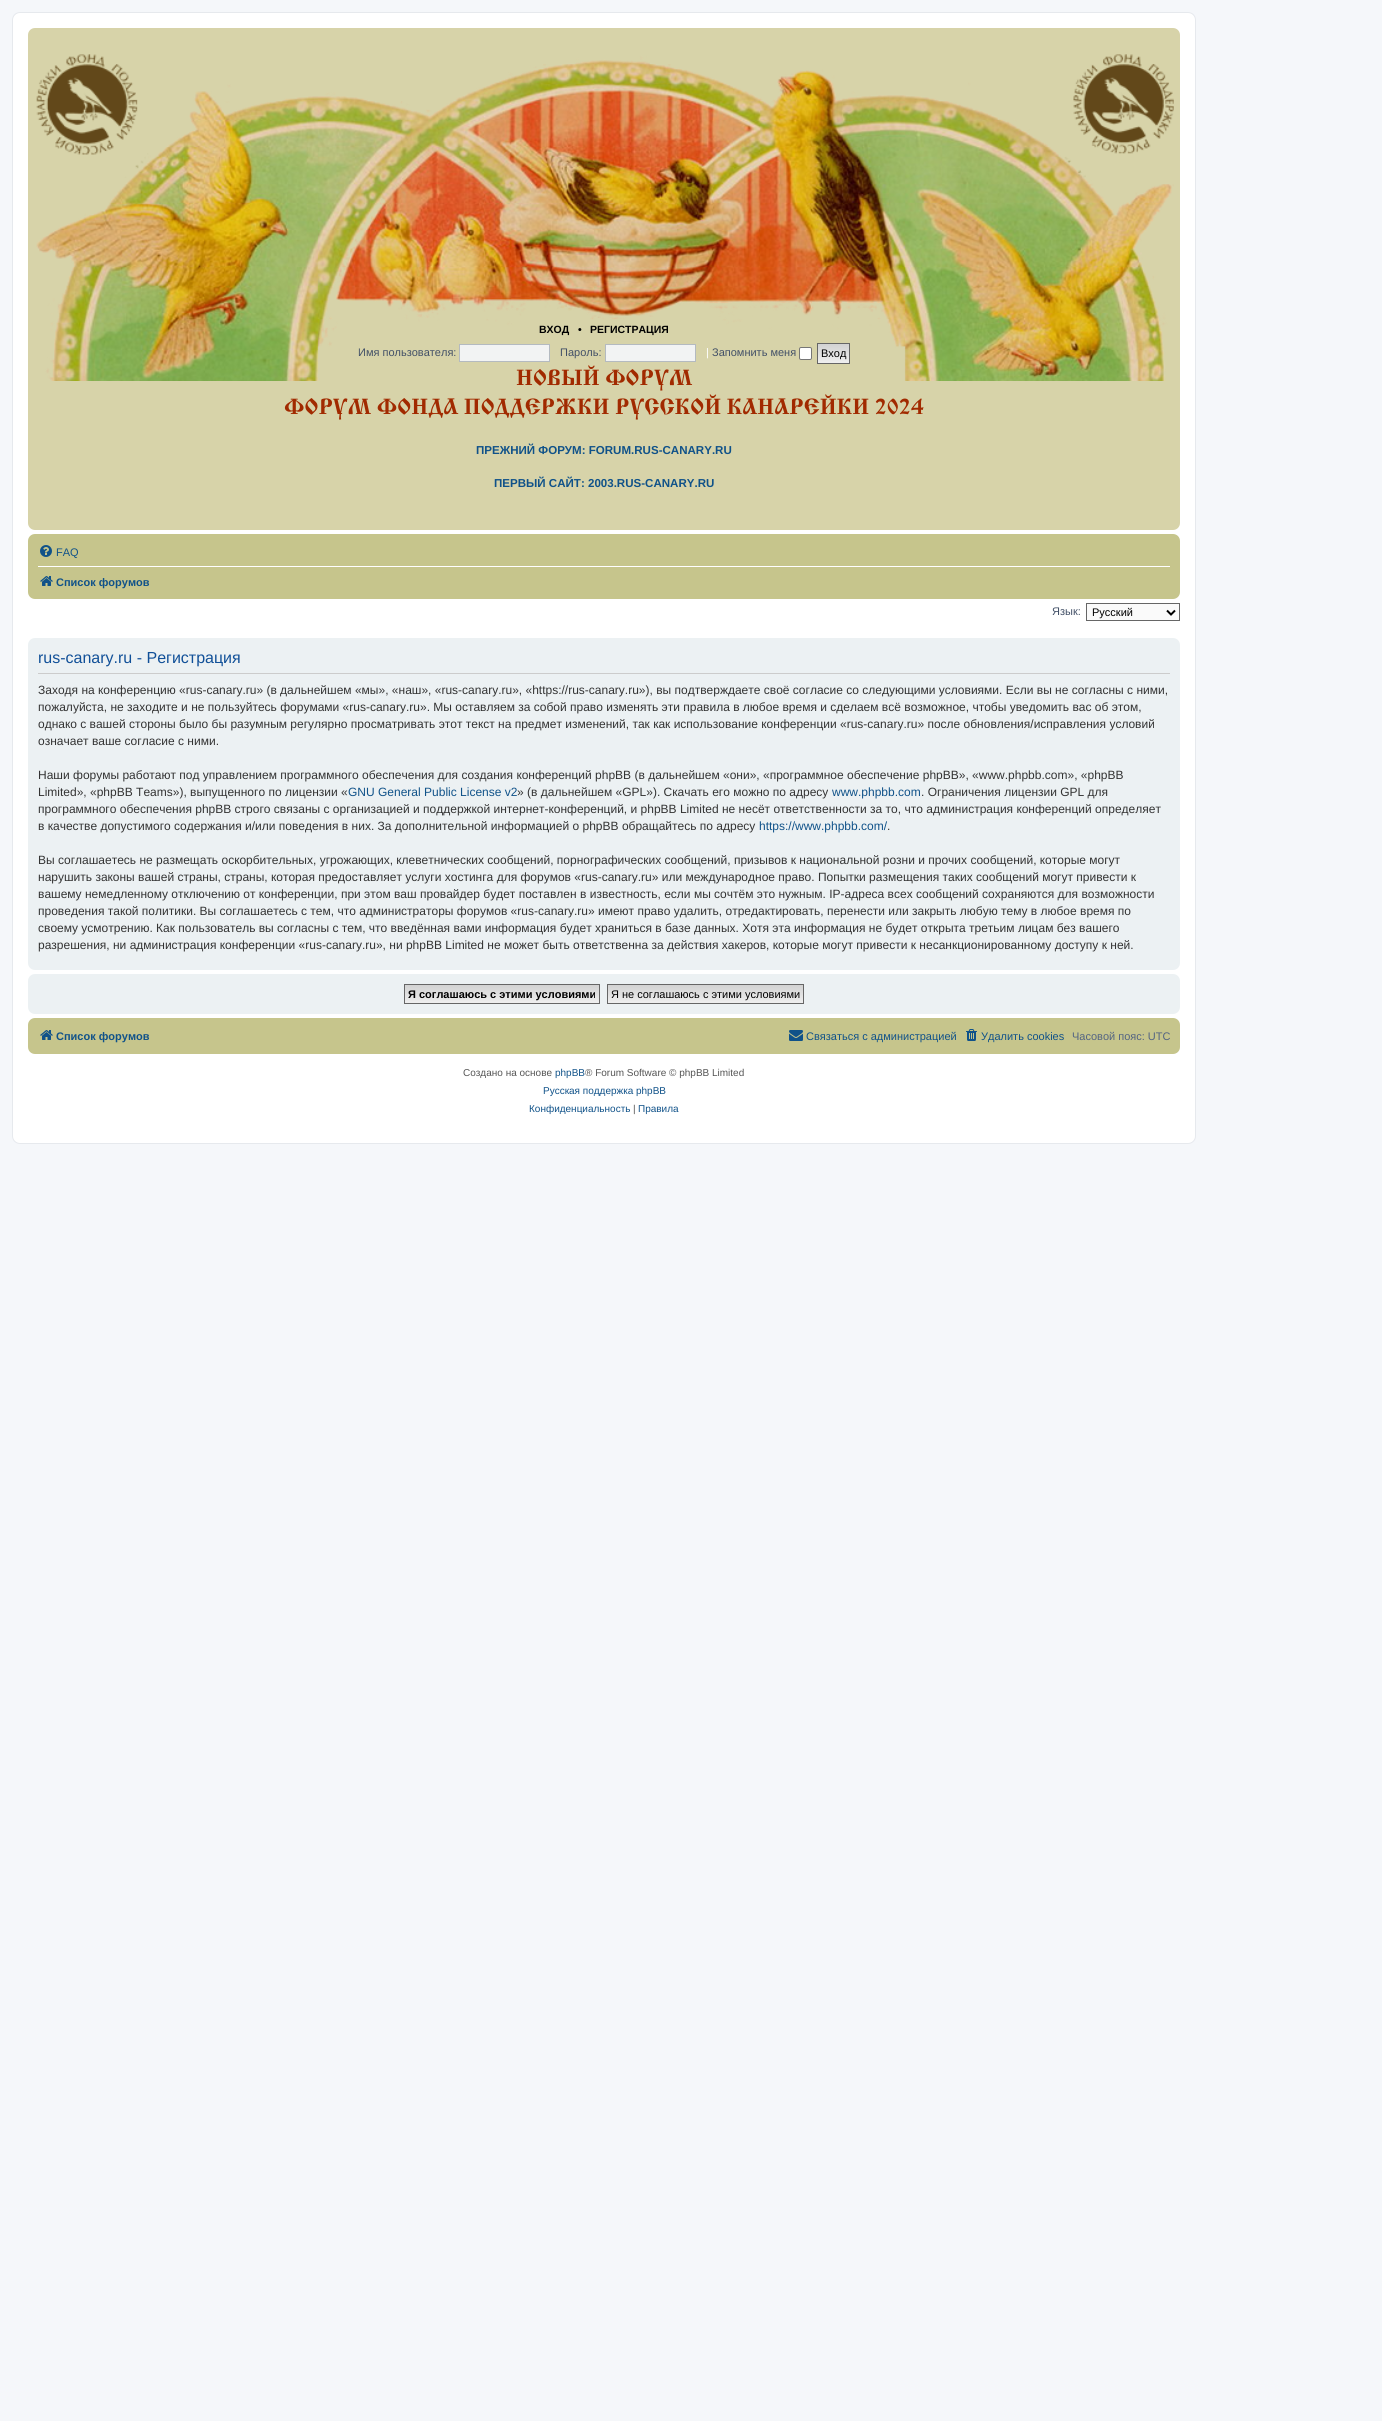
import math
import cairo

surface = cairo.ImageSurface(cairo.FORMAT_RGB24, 1382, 2421)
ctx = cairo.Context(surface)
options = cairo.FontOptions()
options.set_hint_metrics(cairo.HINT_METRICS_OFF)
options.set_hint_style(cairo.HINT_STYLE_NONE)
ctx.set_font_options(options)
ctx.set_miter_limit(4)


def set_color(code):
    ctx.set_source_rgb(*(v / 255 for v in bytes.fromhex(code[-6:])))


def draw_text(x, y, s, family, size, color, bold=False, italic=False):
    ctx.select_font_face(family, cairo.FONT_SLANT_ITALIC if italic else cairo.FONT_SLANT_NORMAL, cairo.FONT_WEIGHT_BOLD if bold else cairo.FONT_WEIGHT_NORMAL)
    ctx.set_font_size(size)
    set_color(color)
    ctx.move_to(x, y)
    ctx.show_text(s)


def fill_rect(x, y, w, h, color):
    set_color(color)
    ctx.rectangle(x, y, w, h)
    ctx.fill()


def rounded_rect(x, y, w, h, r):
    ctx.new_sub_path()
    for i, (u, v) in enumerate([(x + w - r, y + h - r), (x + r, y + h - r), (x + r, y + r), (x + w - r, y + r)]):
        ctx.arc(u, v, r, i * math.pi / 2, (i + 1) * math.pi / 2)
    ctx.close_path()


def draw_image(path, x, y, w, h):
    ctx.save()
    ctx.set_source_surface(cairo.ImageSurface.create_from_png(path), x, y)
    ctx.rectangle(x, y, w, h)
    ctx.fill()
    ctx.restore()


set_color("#f5f7fa")
ctx.paint()
set_color("#ffffff")
rounded_rect(12.5, 12.5, 1183, 1131, 7.5)
ctx.fill_preserve()
set_color("#e6e9ed")
ctx.set_line_width(1)
ctx.stroke()
set_color("#d7d3a9")
rounded_rect(28, 28, 1152, 502, 7)
ctx.fill()
draw_image("assets/img1.png", 36, 54, 1138, 327)
draw_text(539, 333, "ВХОД", "Liberation Sans", 10.5, "#000000", bold=True)
draw_text(578, 333, "•", "Liberation Sans", 10.5, "#000000", bold=True)
draw_text(590, 333, "РЕГИСТРАЦИЯ", "Liberation Sans", 10.5, "#000000", bold=True)
draw_text(358, 356, "Имя пользователя:", "Liberation Sans", 11, "#425067")
set_color("#f2f3f3")
ctx.rectangle(459.5, 344.5, 90, 17)
ctx.fill_preserve()
set_color("#b4bac0")
ctx.stroke()
draw_text(560, 356, "Пароль:", "Liberation Sans", 11, "#425067")
set_color("#f2f3f3")
ctx.rectangle(605.5, 344.5, 90, 17)
ctx.fill_preserve()
set_color("#b4bac0")
ctx.stroke()
draw_text(706, 356, "|", "Liberation Sans", 11, "#ffffff")
draw_text(712, 356, "Запомнить меня", "Liberation Sans", 11, "#425067")
set_color("#ffffff")
rounded_rect(799.5, 347.5, 12, 12, 1.5)
ctx.fill_preserve()
set_color("#767676")
ctx.stroke()
gradient = cairo.LinearGradient(834, 344, 834, 363)
gradient.add_color_stop_rgba(0, 0.824, 0.824, 0.824, 1)
gradient.add_color_stop_rgba(1, 0.937, 0.937, 0.937, 1)
ctx.set_source(gradient)
ctx.rectangle(818, 344, 31, 19)
ctx.fill()
ctx.rectangle(817.5, 343.5, 32, 20)
set_color("#666666")
ctx.stroke()
draw_text(821, 357, "Вход", "Liberation Sans", 11, "#000000")
draw_text(516, 385, "НОВЫЙ ФОРУМ", "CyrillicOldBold", 23, "#a12a00", bold=True)
draw_text(284, 414, "ФОРУМ ФОНДА ПОДДЕРЖКИ РУССКОЙ КАНАРЕЙКИ 2024", "CyrillicOldBold", 23, "#a12a00", bold=True)
draw_text(476, 454, "ПРЕЖНИЙ ФОРУМ: FORUM.RUS-CANARY.RU", "Liberation Sans", 11.55, "#105289", bold=True)
draw_text(494, 487, "ПЕРВЫЙ САЙТ: 2003.RUS-CANARY.RU", "Liberation Sans", 11.55, "#105289", bold=True)
set_color("#c6c58c")
rounded_rect(28, 534, 1152, 65, 7)
ctx.fill()
draw_image("assets/img2.png", 40, 545, 12, 12)
draw_text(56, 556, "FAQ", "Liberation Sans", 11, "#105289")
fill_rect(38, 566, 1132, 1, "#ffffff")
draw_image("assets/img3.png", 40, 576, 13, 10)
draw_text(56, 586, "Список форумов", "Liberation Sans", 11, "#105289", bold=True)
draw_text(1052, 615, "Язык:", "Liberation Sans", 11, "#425067")
set_color("#fafafa")
ctx.rectangle(1086.5, 603.5, 93, 17)
ctx.fill_preserve()
set_color("#666666")
ctx.stroke()
ctx.new_path()
ctx.move_to(1167, 610.5)
ctx.line_to(1171, 614.5)
ctx.line_to(1175, 610.5)
set_color("#000000")
ctx.set_line_width(2)
ctx.stroke()
draw_text(1092, 616, "Русский", "Liberation Sans", 11, "#000000")
set_color("#ecf1f3")
rounded_rect(28, 638, 1152, 332, 7)
ctx.fill()
fill_rect(38, 673, 1132, 1, "#cccccc")
draw_text(38, 663, "rus-canary.ru - Регистрация", "Liberation Sans", 16, "#115098")
draw_text(38, 694, "Заходя на конференцию «rus-canary.ru» (в дальнейшем «мы», «наш», «rus-canary.ru», «https://rus-canary.ru»), вы подтверждаете своё согласие со следующими условиями. Если вы не согласны с ними,", "Liberation Sans", 12, "#333333")
draw_text(38, 711, "пожалуйста, не заходите и не пользуйтесь форумами «rus-canary.ru». Мы оставляем за собой право изменять эти правила в любое время и сделаем всё возможное, чтобы уведомить вас об этом,", "Liberation Sans", 12, "#333333")
draw_text(38, 728, "однако с вашей стороны было бы разумным регулярно просматривать этот текст на предмет изменений, так как использование конференции «rus-canary.ru» после обновления/исправления условий", "Liberation Sans", 12, "#333333")
draw_text(38, 745, "означает ваше согласие с ними.", "Liberation Sans", 12, "#333333")
draw_text(38, 779, "Наши форумы работают под управлением программного обеспечения для создания конференций phpBB (в дальнейшем «они», «программное обеспечение phpBB», «www.phpbb.com», «phpBB", "Liberation Sans", 12, "#333333")
draw_text(38, 796, "Limited», «phpBB Teams»), выпущенного по лицензии «", "Liberation Sans", 12, "#333333")
draw_text(348, 796, "GNU General Public License v2", "Liberation Sans", 12, "#105289")
draw_text(517, 796, "» (в дальнейшем «GPL»). Скачать его можно по адресу", "Liberation Sans", 12, "#333333")
draw_text(832, 796, "www.phpbb.com", "Liberation Sans", 12, "#105289")
draw_text(921, 796, ". Ограничения лицензии GPL для", "Liberation Sans", 12, "#333333")
draw_text(38, 813, "программного обеспечения phpBB строго связаны с организацией и поддержкой интернет-конференций, и phpBB Limited не несёт ответственности за то, что администрация конференций определяет", "Liberation Sans", 12, "#333333")
draw_text(38, 830, "в качестве допустимого содержания и/или поведения в них. За дополнительной информацией о phpBB обращайтесь по адресу", "Liberation Sans", 12, "#333333")
draw_text(759, 830, "https://www.phpbb.com/", "Liberation Sans", 12, "#105289")
draw_text(887, 830, ".", "Liberation Sans", 12, "#333333")
draw_text(38, 864, "Вы соглашаетесь не размещать оскорбительных, угрожающих, клеветнических сообщений, порнографических сообщений, призывов к национальной розни и прочих сообщений, которые могут", "Liberation Sans", 12, "#333333")
draw_text(38, 881, "нарушить законы вашей страны, страны, которая предоставляет услуги хостинга для форумов «rus-canary.ru» или международное право. Попытки размещения таких сообщений могут привести к", "Liberation Sans", 12, "#333333")
draw_text(38, 898, "вашему немедленному отключению от конференции, при этом ваш провайдер будет поставлен в известность, если мы сочтём это нужным. IP-адреса всех сообщений сохраняются для возможности", "Liberation Sans", 12, "#333333")
draw_text(38, 915, "проведения такой политики. Вы соглашаетесь с тем, что администраторы форумов «rus-canary.ru» имеют право удалить, отредактировать, перенести или закрыть любую тему в любое время по", "Liberation Sans", 12, "#333333")
draw_text(38, 932, "своему усмотрению. Как пользователь вы согласны с тем, что введённая вами информация будет храниться в базе данных. Хотя эта информация не будет открыта третьим лицам без вашего", "Liberation Sans", 12, "#333333")
draw_text(38, 949, "разрешения, ни администрация конференции «rus-canary.ru», ни phpBB Limited не может быть ответственна за действия хакеров, которые могут привести к несанкционированному доступу к ней.", "Liberation Sans", 12, "#333333")
set_color("#ecf1f3")
rounded_rect(28, 974, 1152, 40, 7)
ctx.fill()
gradient = cairo.LinearGradient(502, 985, 502, 1003)
gradient.add_color_stop_rgba(0, 0.824, 0.824, 0.824, 1)
gradient.add_color_stop_rgba(1, 0.937, 0.937, 0.937, 1)
ctx.set_source(gradient)
ctx.rectangle(405, 985, 194, 18)
ctx.fill()
ctx.rectangle(404.5, 984.5, 195, 19)
set_color("#666666")
ctx.set_line_width(1)
ctx.stroke()
draw_text(408, 998, "Я соглашаюсь с этими условиями", "Liberation Sans", 11, "#000000", bold=True)
gradient = cairo.LinearGradient(706, 985, 706, 1003)
gradient.add_color_stop_rgba(0, 0.824, 0.824, 0.824, 1)
gradient.add_color_stop_rgba(1, 0.937, 0.937, 0.937, 1)
ctx.set_source(gradient)
ctx.rectangle(608, 985, 195, 18)
ctx.fill()
ctx.rectangle(607.5, 984.5, 196, 19)
set_color("#666666")
ctx.stroke()
draw_text(611, 998, "Я не соглашаюсь с этими условиями", "Liberation Sans", 11, "#000000")
set_color("#c6c58c")
rounded_rect(28, 1018, 1152, 36, 7)
ctx.fill()
draw_image("assets/img3.png", 40, 1030, 13, 10)
draw_text(56, 1040, "Список форумов", "Liberation Sans", 11, "#105289", bold=True)
draw_image("assets/img4.png", 789, 1030, 14, 11)
draw_text(806, 1040, "Связаться с администрацией", "Liberation Sans", 11, "#105289")
draw_image("assets/img5.png", 966, 1029, 11, 12)
draw_text(981, 1040, "Удалить cookies", "Liberation Sans", 11, "#105289")
draw_text(1072, 1040, "Часовой пояс: UTC", "Liberation Sans", 11, "#536482")
draw_text(463, 1076, "Создано на основе", "Liberation Sans", 10, "#555555")
draw_text(555, 1076, "phpBB", "Liberation Sans", 10, "#105289")
draw_text(585, 1076, "® Forum Software © phpBB Limited", "Liberation Sans", 10, "#555555")
draw_text(543, 1094, "Русская поддержка phpBB", "Liberation Sans", 10, "#105289")
draw_text(529, 1112, "Конфиденциальность", "Liberation Sans", 10, "#105289")
draw_text(633, 1112, "|", "Liberation Sans", 10, "#555555")
draw_text(638, 1112, "Правила", "Liberation Sans", 10, "#105289")
surface.write_to_png("output.png")
